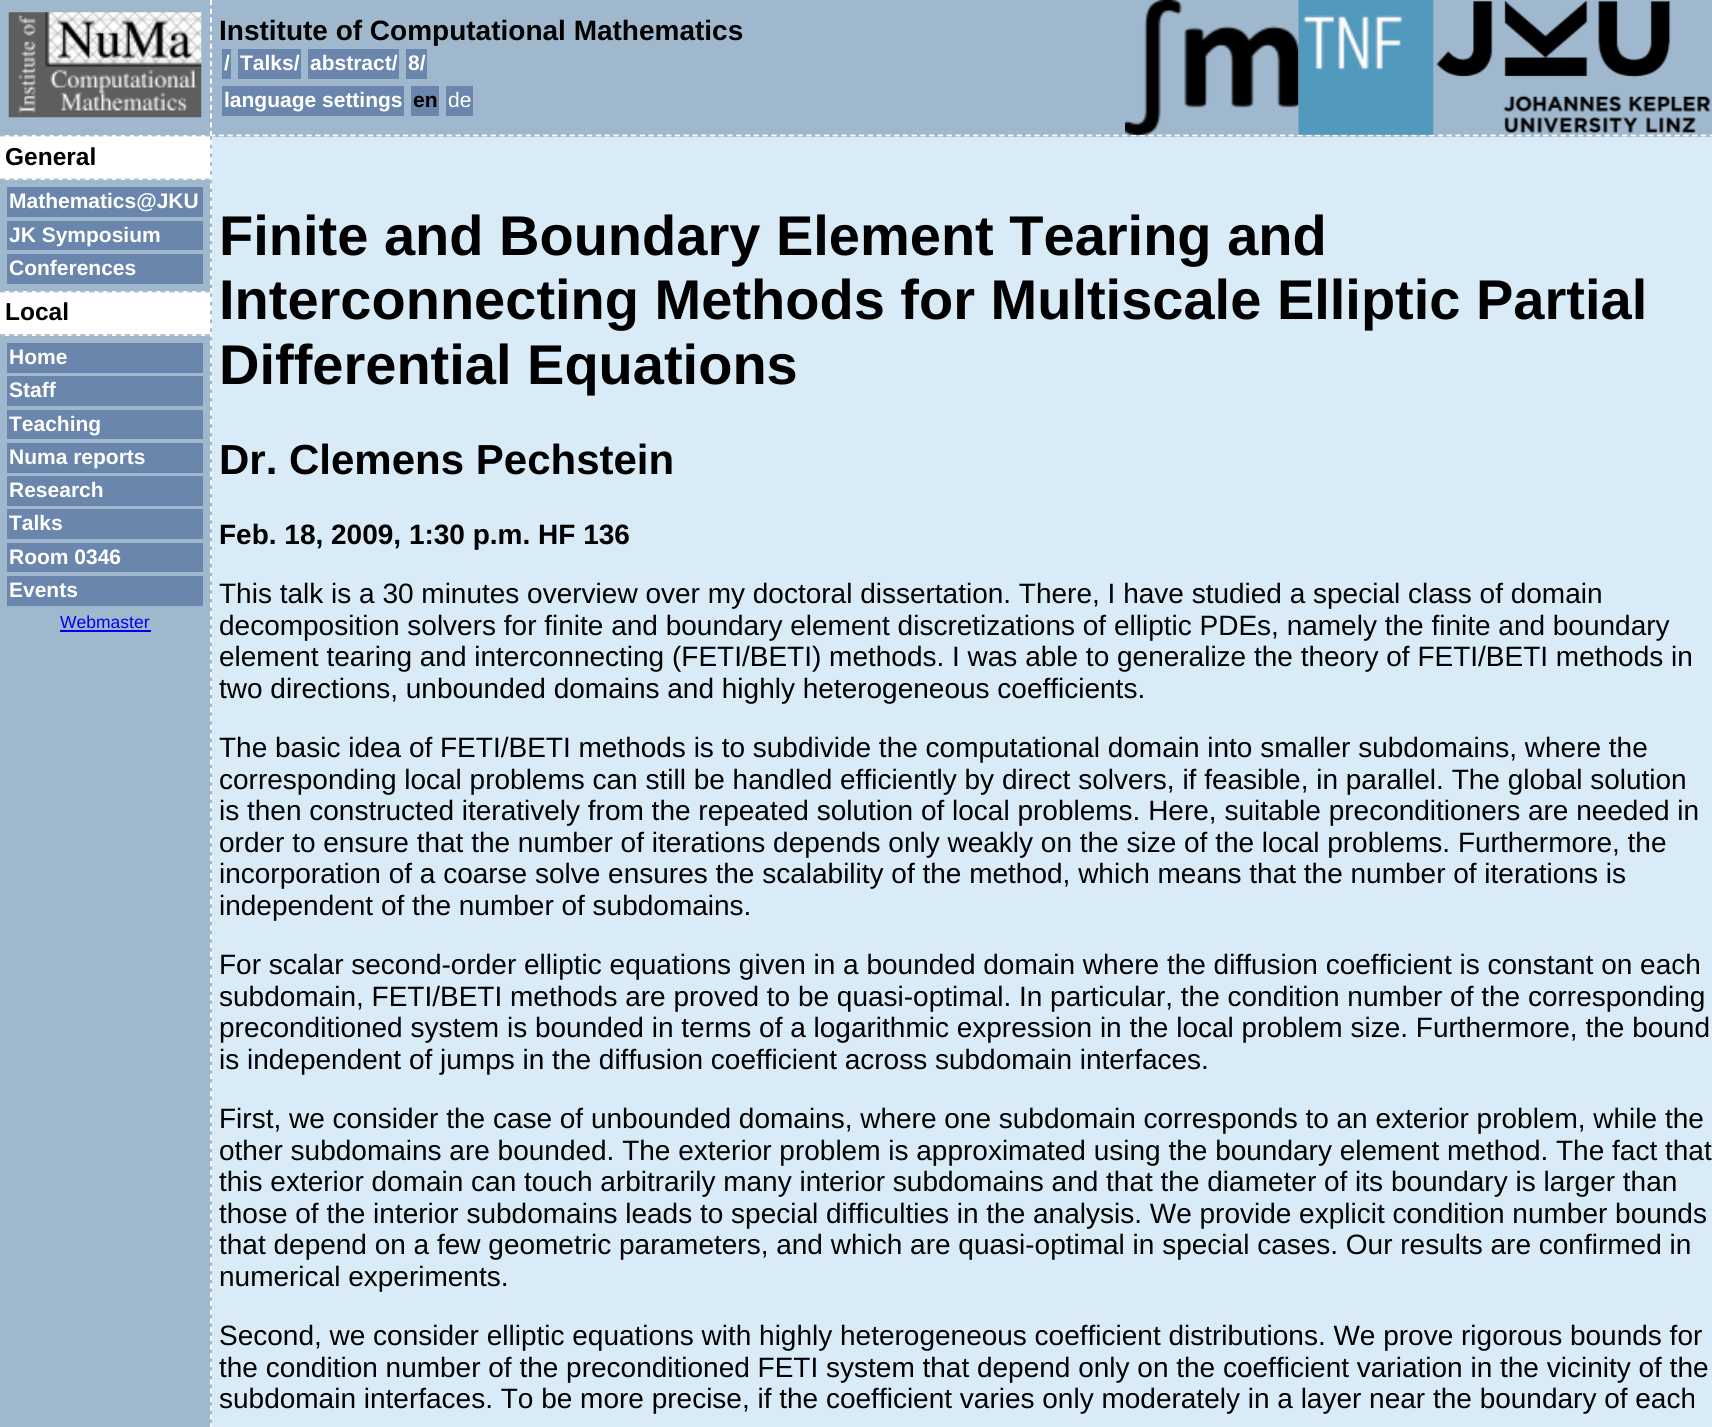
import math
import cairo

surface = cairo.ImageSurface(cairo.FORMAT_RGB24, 1712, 1427)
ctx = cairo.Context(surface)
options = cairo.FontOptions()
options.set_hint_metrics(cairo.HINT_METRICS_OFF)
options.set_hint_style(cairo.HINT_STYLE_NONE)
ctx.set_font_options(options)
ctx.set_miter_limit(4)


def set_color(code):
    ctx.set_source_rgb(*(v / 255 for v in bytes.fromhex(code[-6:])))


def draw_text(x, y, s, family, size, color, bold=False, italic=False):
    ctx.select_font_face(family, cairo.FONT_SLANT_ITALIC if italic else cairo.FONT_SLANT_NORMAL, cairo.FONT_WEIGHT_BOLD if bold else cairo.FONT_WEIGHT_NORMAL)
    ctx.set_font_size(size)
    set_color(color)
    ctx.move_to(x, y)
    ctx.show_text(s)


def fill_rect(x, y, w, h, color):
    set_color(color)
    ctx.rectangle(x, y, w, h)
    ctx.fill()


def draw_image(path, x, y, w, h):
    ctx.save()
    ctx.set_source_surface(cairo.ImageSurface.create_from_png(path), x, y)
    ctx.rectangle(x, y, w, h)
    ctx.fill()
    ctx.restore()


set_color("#d8ebf7")
ctx.paint()
fill_rect(212, 0, 1500, 137, "#a0b8ce")
ctx.new_path()
ctx.move_to(210, 135.5)
ctx.line_to(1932, 135.5)
set_color("#ffffff")
ctx.set_line_width(1.8)
ctx.set_dash([5.25, 3.52])
ctx.stroke()
draw_text(219, 40, "Institute of Computational Mathematics", "Liberation Sans", 28, "#000000", bold=True)
fill_rect(222, 49, 9, 30, "#6b86ad")
draw_text(224, 70, "/", "Liberation Sans", 21, "#ffffff", bold=True)
fill_rect(238, 49, 63, 30, "#6b86ad")
draw_text(240, 70, "Talks/", "Liberation Sans", 21, "#ffffff", bold=True)
fill_rect(308, 49, 91, 30, "#6b86ad")
draw_text(310, 70, "abstract/", "Liberation Sans", 21, "#ffffff", bold=True)
fill_rect(406, 49, 21, 30, "#6b86ad")
draw_text(408, 70, "8/", "Liberation Sans", 21, "#ffffff", bold=True)
fill_rect(222, 86, 182, 30, "#6b86ad")
draw_text(224, 107, "language settings", "Liberation Sans", 21, "#ffffff", bold=True)
fill_rect(411, 86, 28, 30, "#6b86ad")
draw_text(413, 107, "en", "Liberation Sans", 21, "#000000", bold=True)
fill_rect(446, 86, 27, 30, "#6b86ad")
draw_text(448, 107, "de", "Liberation Sans", 21, "#ffffff")
draw_image("assets/img1.png", 1125, 0, 174, 135)
draw_image("assets/img2.png", 1298, 0, 136, 135)
draw_image("assets/img3.png", 1436, 1, 275, 132)
fill_rect(0, 0, 212, 1427, "#a0b8ce")
ctx.new_path()
ctx.move_to(211, 0)
ctx.line_to(211, 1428)
set_color("#ffffff")
ctx.set_dash([5.25, 3.48])
ctx.stroke()
draw_image("assets/img4.png", 8, 12, 194, 106)
fill_rect(0, 135, 210, 45, "#ffffff")
ctx.new_path()
ctx.move_to(0, 135.5)
ctx.line_to(210, 135.5)
set_color("#adbace")
ctx.set_dash([5.25, 3.66])
ctx.stroke()
ctx.new_path()
ctx.move_to(0, 179.5)
ctx.line_to(210, 179.5)
ctx.stroke()
draw_text(5, 165, "General", "Liberation Sans", 24.5, "#000000", bold=True)
fill_rect(7, 187, 196, 30, "#6b86ad")
draw_text(9, 208, "Mathematics@JKU", "Liberation Sans", 21, "#ffffff", bold=True)
fill_rect(7, 221, 196, 29, "#6b86ad")
draw_text(9, 242, "JK Symposium", "Liberation Sans", 21, "#ffffff", bold=True)
fill_rect(7, 254, 196, 30, "#6b86ad")
draw_text(9, 275, "Conferences", "Liberation Sans", 21, "#ffffff", bold=True)
fill_rect(0, 291, 210, 45, "#ffffff")
ctx.new_path()
ctx.move_to(0, 291.5)
ctx.line_to(210, 291.5)
set_color("#adbace")
ctx.stroke()
ctx.new_path()
ctx.move_to(0, 335)
ctx.line_to(210, 335)
ctx.stroke()
draw_text(5, 320, "Local", "Liberation Sans", 24.5, "#000000", bold=True)
fill_rect(7, 343, 196, 30, "#6b86ad")
draw_text(9, 364, "Home", "Liberation Sans", 21, "#ffffff", bold=True)
fill_rect(7, 376, 196, 30, "#6b86ad")
draw_text(9, 397, "Staff", "Liberation Sans", 21, "#ffffff", bold=True)
fill_rect(7, 410, 196, 29, "#6b86ad")
draw_text(9, 431, "Teaching", "Liberation Sans", 21, "#ffffff", bold=True)
fill_rect(7, 443, 196, 30, "#6b86ad")
draw_text(9, 464, "Numa reports", "Liberation Sans", 21, "#ffffff", bold=True)
fill_rect(7, 476, 196, 30, "#6b86ad")
draw_text(9, 497, "Research", "Liberation Sans", 21, "#ffffff", bold=True)
fill_rect(7, 509, 196, 30, "#6b86ad")
draw_text(9, 530, "Talks", "Liberation Sans", 21, "#ffffff", bold=True)
fill_rect(7, 543, 196, 29, "#6b86ad")
draw_text(9, 564, "Room 0346", "Liberation Sans", 21, "#ffffff", bold=True)
fill_rect(7, 576, 196, 30, "#6b86ad")
draw_text(9, 597, "Events", "Liberation Sans", 21, "#ffffff", bold=True)
draw_text(60, 628, "Webmaster", "Liberation Sans", 17.5, "#0000ee")
fill_rect(60, 630, 91, 2, "#0000ee")
draw_text(219, 255, "Finite and Boundary Element Tearing and", "Liberation Sans", 56, "#000000", bold=True)
draw_text(219, 319, "Interconnecting Methods for Multiscale Elliptic Partial", "Liberation Sans", 56, "#000000", bold=True)
draw_text(219, 384, "Differential Equations", "Liberation Sans", 56, "#000000", bold=True)
draw_text(219, 474, "Dr. Clemens Pechstein", "Liberation Sans", 42, "#000000", bold=True)
draw_text(219, 544, "Feb. 18, 2009, 1:30 p.m. HF 136", "Liberation Sans", 28, "#000000", bold=True)
draw_text(219, 603, "This talk is a 30 minutes overview over my doctoral dissertation. There, I have studied a special class of domain", "Liberation Sans", 28, "#000000")
draw_text(219, 635, "decomposition solvers for finite and boundary element discretizations of elliptic PDEs, namely the finite and boundary", "Liberation Sans", 28, "#000000")
draw_text(219, 666, "element tearing and interconnecting (FETI/BETI) methods. I was able to generalize the theory of FETI/BETI methods in", "Liberation Sans", 28, "#000000")
draw_text(219, 698, "two directions, unbounded domains and highly heterogeneous coefficients.", "Liberation Sans", 28, "#000000")
draw_text(219, 757, "The basic idea of FETI/BETI methods is to subdivide the computational domain into smaller subdomains, where the", "Liberation Sans", 28, "#000000")
draw_text(219, 789, "corresponding local problems can still be handled efficiently by direct solvers, if feasible, in parallel. The global solution", "Liberation Sans", 28, "#000000")
draw_text(219, 820, "is then constructed iteratively from the repeated solution of local problems. Here, suitable preconditioners are needed in", "Liberation Sans", 28, "#000000")
draw_text(219, 852, "order to ensure that the number of iterations depends only weakly on the size of the local problems. Furthermore, the", "Liberation Sans", 28, "#000000")
draw_text(219, 883, "incorporation of a coarse solve ensures the scalability of the method, which means that the number of iterations is", "Liberation Sans", 28, "#000000")
draw_text(219, 915, "independent of the number of subdomains.", "Liberation Sans", 28, "#000000")
draw_text(219, 974, "For scalar second-order elliptic equations given in a bounded domain where the diffusion coefficient is constant on each", "Liberation Sans", 28, "#000000")
draw_text(219, 1006, "subdomain, FETI/BETI methods are proved to be quasi-optimal. In particular, the condition number of the corresponding", "Liberation Sans", 28, "#000000")
draw_text(219, 1037, "preconditioned system is bounded in terms of a logarithmic expression in the local problem size. Furthermore, the bound", "Liberation Sans", 28, "#000000")
draw_text(219, 1069, "is independent of jumps in the diffusion coefficient across subdomain interfaces.", "Liberation Sans", 28, "#000000")
draw_text(219, 1128, "First, we consider the case of unbounded domains, where one subdomain corresponds to an exterior problem, while the", "Liberation Sans", 28, "#000000")
draw_text(219, 1160, "other subdomains are bounded. The exterior problem is approximated using the boundary element method. The fact that", "Liberation Sans", 28, "#000000")
draw_text(219, 1191, "this exterior domain can touch arbitrarily many interior subdomains and that the diameter of its boundary is larger than", "Liberation Sans", 28, "#000000")
draw_text(219, 1223, "those of the interior subdomains leads to special difficulties in the analysis. We provide explicit condition number bounds", "Liberation Sans", 28, "#000000")
draw_text(219, 1254, "that depend on a few geometric parameters, and which are quasi-optimal in special cases. Our results are confirmed in", "Liberation Sans", 28, "#000000")
draw_text(219, 1286, "numerical experiments.", "Liberation Sans", 28, "#000000")
draw_text(219, 1345, "Second, we consider elliptic equations with highly heterogeneous coefficient distributions. We prove rigorous bounds for", "Liberation Sans", 28, "#000000")
draw_text(219, 1377, "the condition number of the preconditioned FETI system that depend only on the coefficient variation in the vicinity of the", "Liberation Sans", 28, "#000000")
draw_text(219, 1408, "subdomain interfaces. To be more precise, if the coefficient varies only moderately in a layer near the boundary of each", "Liberation Sans", 28, "#000000")
surface.write_to_png("output.png")
